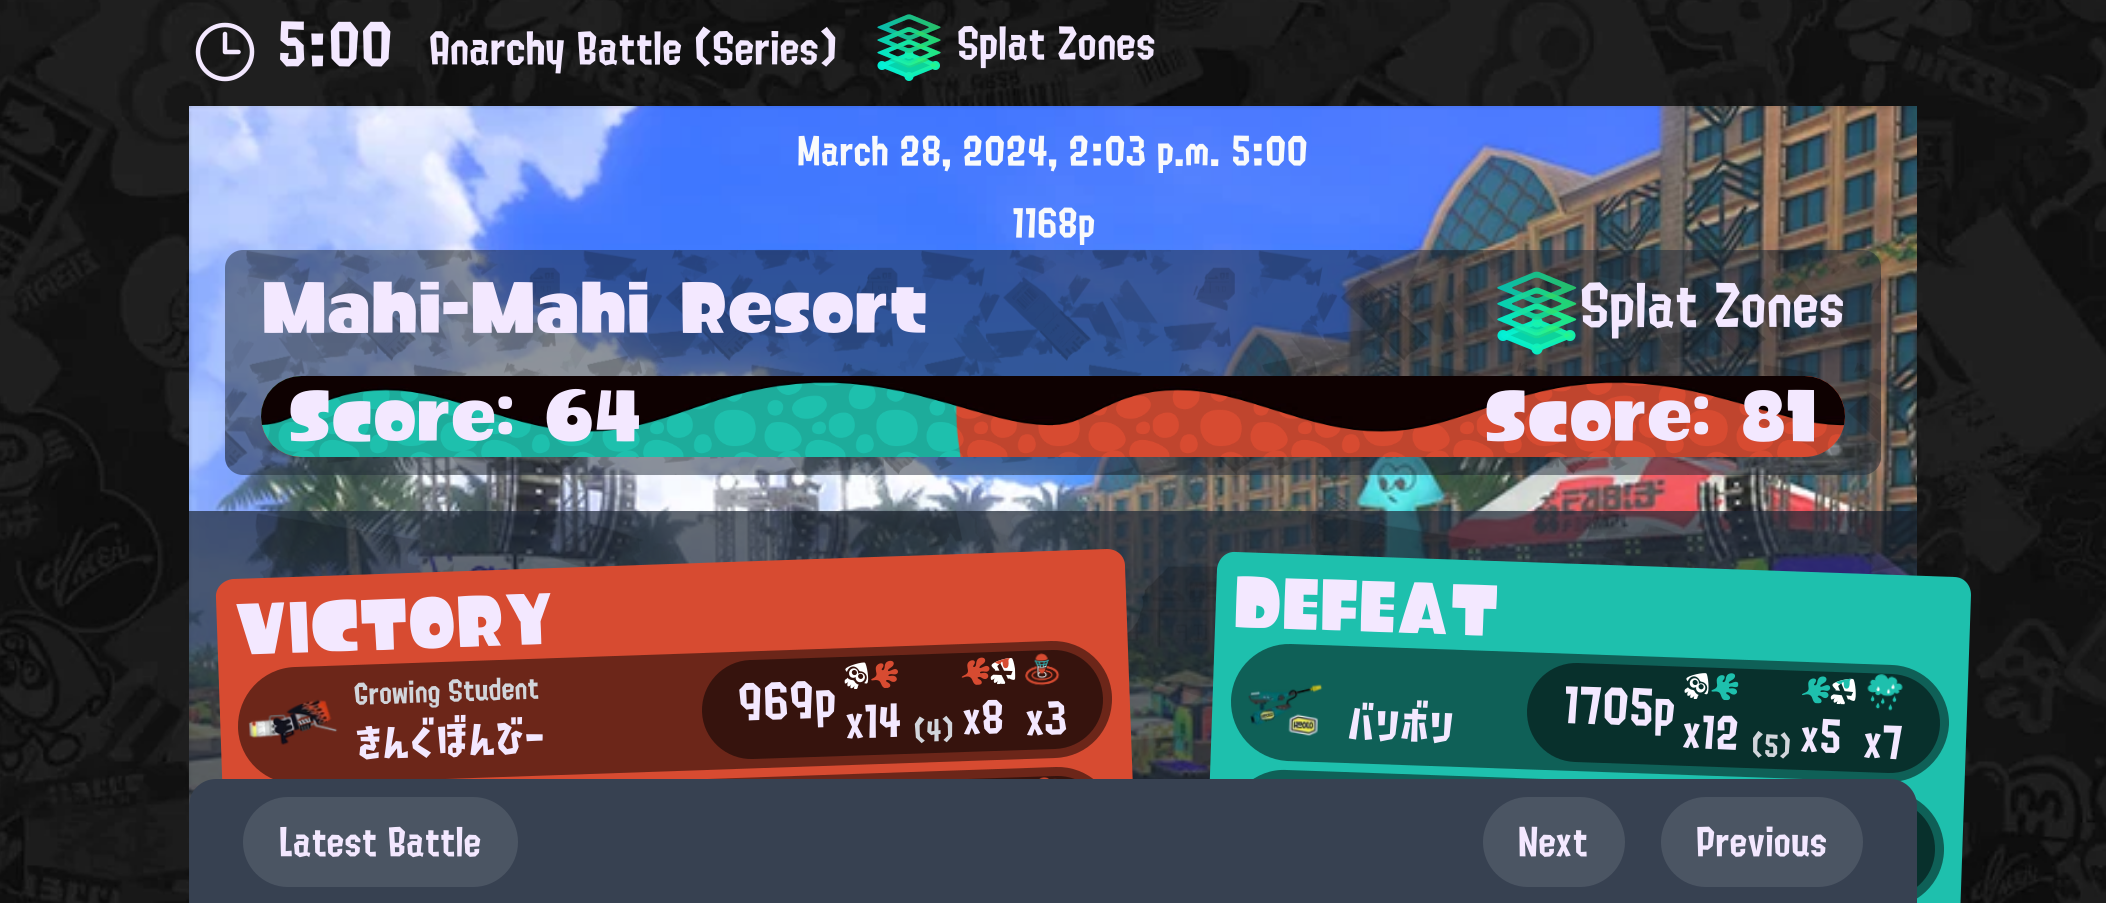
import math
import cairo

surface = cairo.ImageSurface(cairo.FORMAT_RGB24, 2106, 903)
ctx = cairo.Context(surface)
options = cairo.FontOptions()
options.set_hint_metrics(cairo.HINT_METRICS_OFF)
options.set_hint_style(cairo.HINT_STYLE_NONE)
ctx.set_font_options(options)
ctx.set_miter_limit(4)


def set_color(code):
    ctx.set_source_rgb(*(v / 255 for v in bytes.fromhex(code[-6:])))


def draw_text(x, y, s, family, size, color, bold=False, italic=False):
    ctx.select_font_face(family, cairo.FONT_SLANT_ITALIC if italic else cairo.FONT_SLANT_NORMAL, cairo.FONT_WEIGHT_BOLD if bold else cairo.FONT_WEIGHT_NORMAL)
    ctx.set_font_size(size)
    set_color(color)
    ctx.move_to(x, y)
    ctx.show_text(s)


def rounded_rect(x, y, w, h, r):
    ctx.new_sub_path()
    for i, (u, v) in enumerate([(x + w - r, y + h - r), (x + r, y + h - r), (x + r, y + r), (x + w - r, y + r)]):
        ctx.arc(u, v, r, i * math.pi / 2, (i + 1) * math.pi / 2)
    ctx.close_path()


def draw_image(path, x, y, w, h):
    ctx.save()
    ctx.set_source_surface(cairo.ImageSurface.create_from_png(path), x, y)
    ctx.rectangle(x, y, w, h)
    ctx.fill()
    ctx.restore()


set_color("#ffffff")
ctx.paint()
draw_image("assets/img1.png", 0, 0, 2106, 903)
ctx.new_path()
ctx.move_to(225, 34)
ctx.line_to(225, 52)
ctx.line_to(238.5, 52)
ctx.move_to(252, 52)
ctx.curve_to(252, 66.5, 240, 79, 225, 79)
ctx.curve_to(210, 79, 198, 66.5, 198, 52)
ctx.curve_to(198, 37, 210, 25, 225, 25)
ctx.curve_to(240, 25, 252, 37, 252, 51.5)
ctx.close_path()
set_color("#f3e8ff")
ctx.set_line_width(4.5)
ctx.set_line_cap(cairo.LINE_CAP_ROUND)
ctx.set_line_join(cairo.LINE_JOIN_ROUND)
ctx.stroke()
draw_text(277, 64, "5:00", "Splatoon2", 54, "#f3e8ff")
draw_text(429, 63, "Anarchy Battle (Series)", "Splatoon2", 40.5, "#f3e8ff")
draw_image("assets/img2.png", 877, 14, 64, 67)
draw_text(957, 58, "Splat Zones", "Splatoon2", 40.5, "#f3e8ff")
draw_image("assets/img3.png", 189, 106, 1728, 700)
draw_text(797, 164, "March 28, 2024, 2:03 p.m. 5:00", "Splatoon2", 36, "#f9fafb")
draw_text(1012, 236, "1168p", "Splatoon2", 36, "#f9fafb")
ctx.set_source_rgba(0.122, 0.161, 0.216, 0.5)
rounded_rect(225, 250, 1656, 225, 18)
ctx.fill()
draw_image("assets/img4.png", 225, 249, 1656, 226)
draw_text(261, 332, "Mahi-Mahi Resort", "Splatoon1 ExtraBold", 67.5, "#f3e8ff")
draw_image("assets/img5.png", 1497, 271, 80, 84)
draw_text(1580, 325, "Splat Zones", "Splatoon2", 54, "#f3e8ff")
set_color("#d74b31")
rounded_rect(261, 376, 1584, 81, 40.5)
ctx.fill()
draw_image("assets/img6.png", 261, 377, 1584, 80)
draw_image("assets/img8.png", 261, 376, 700, 81)
draw_image("assets/img7.png", 261, 376, 1584, 56)
draw_text(288, 440, "Score: 64", "Splatoon1 ExtraBold", 67.5, "#f3e8ff")
draw_text(1484, 440, "Score: 81", "Splatoon1 ExtraBold", 67.5, "#f3e8ff")
ctx.set_source_rgba(0.122, 0.161, 0.216, 0.7)
ctx.rectangle(189, 511, 1728, 295)
ctx.fill()
draw_image("assets/img9.png", 255, 510, 1662, 269)
set_color("#d74b31")
ctx.new_path()
ctx.move_to(233, 579)
ctx.line_to(1107, 549)
ctx.curve_to(1117, 549, 1125, 556, 1125, 566)
ctx.line_to(1145, 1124)
ctx.curve_to(1145, 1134, 1137, 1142, 1127, 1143)
ctx.line_to(254, 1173)
ctx.curve_to(244, 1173, 235, 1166, 235, 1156)
ctx.line_to(216, 598)
ctx.curve_to(215, 588, 223, 580, 233, 579)
ctx.close_path()
ctx.fill()
ctx.save()
ctx.translate(235, 654)
ctx.rotate(-2 * math.pi / 180)
draw_text(0, 0, "VICTORY", "Splatoon1 ExtraBold", 67.5, "#f3e8ff")
ctx.restore()
set_color("#6c2619")
ctx.new_path()
ctx.move_to(295, 667)
ctx.line_to(1051, 641)
ctx.curve_to(1084, 640, 1111, 665, 1112, 697)
ctx.curve_to(1113, 730, 1088, 757, 1055, 758)
ctx.line_to(299, 784)
ctx.curve_to(266, 785, 239, 760, 238, 728)
ctx.curve_to(237, 696, 262, 668, 295, 667)
ctx.close_path()
ctx.fill()
draw_image("assets/img10.png", 248, 699, 90, 46)
ctx.save()
ctx.new_path()
ctx.move_to(353.5, 674.5)
ctx.line_to(542, 667.5)
ctx.line_to(543.5, 703.5)
ctx.line_to(354.5, 710.5)
ctx.close_path()
ctx.clip()
ctx.save()
ctx.translate(354, 704)
ctx.rotate(-2 * math.pi / 180)
draw_text(0, 0, "Growing Student", "Splatoon2", 27, "#d1d5db")
ctx.restore()
ctx.restore()
ctx.save()
ctx.translate(356, 758)
ctx.rotate(-2 * math.pi / 180)
draw_text(0, 0, "きんぐぼんびー", "Splatoon2", 40.5, "#f3e8ff")
ctx.restore()
set_color("#36130d")
ctx.new_path()
ctx.move_to(750, 660)
ctx.line_to(1052, 650)
ctx.curve_to(1079, 649, 1102, 670, 1103, 698)
ctx.curve_to(1104, 725, 1083, 748, 1055, 749)
ctx.line_to(753, 759)
ctx.curve_to(726, 760, 703, 739, 702, 712)
ctx.curve_to(701, 684, 723, 661, 750, 660)
ctx.close_path()
ctx.fill()
ctx.save()
ctx.translate(738, 719)
ctx.rotate(-2 * math.pi / 180)
draw_text(0, 0, "969p", "Splatoon2", 45, "#f3e8ff")
ctx.restore()
draw_image("assets/img11.png", 844, 660, 54, 30)
ctx.save()
ctx.translate(846, 737)
ctx.rotate(-2 * math.pi / 180)
draw_text(0, 0, "x14", "Splatoon2", 40.5, "#f3e8ff")
ctx.restore()
ctx.save()
ctx.translate(914, 741)
ctx.rotate(-2 * math.pi / 180)
draw_text(0, 0, "(4)", "Splatoon2", 27, "#d1d5db")
ctx.restore()
draw_image("assets/img12.png", 961, 657, 55, 28)
ctx.save()
ctx.translate(963, 733)
ctx.rotate(-2 * math.pi / 180)
draw_text(0, 0, "x8", "Splatoon2", 40.5, "#f3e8ff")
ctx.restore()
draw_image("assets/img13.png", 1025, 653, 35, 33)
ctx.save()
ctx.translate(1026, 734)
ctx.rotate(-2 * math.pi / 180)
draw_text(0, 0, "x3", "Splatoon2", 40.5, "#f3e8ff")
ctx.restore()
set_color("#6c2619")
ctx.new_path()
ctx.move_to(299, 793)
ctx.line_to(1056, 767)
ctx.curve_to(1088, 766, 1115, 791, 1116, 823)
ctx.curve_to(1117, 856, 1092, 883, 1060, 884)
ctx.line_to(303, 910)
ctx.curve_to(271, 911, 244, 886, 242, 854)
ctx.curve_to(241, 821, 267, 794, 299, 793)
ctx.close_path()
ctx.fill()
set_color("#36130d")
ctx.new_path()
ctx.move_to(758, 786)
ctx.line_to(1056, 776)
ctx.curve_to(1083, 775, 1106, 796, 1107, 824)
ctx.curve_to(1108, 851, 1087, 874, 1060, 875)
ctx.line_to(761, 885)
ctx.curve_to(734, 886, 711, 865, 710, 837)
ctx.curve_to(709, 810, 730, 787, 758, 786)
ctx.close_path()
ctx.fill()
draw_image("assets/img14.png", 1039, 777, 18, 2)
set_color("#1ec0ad")
ctx.new_path()
ctx.move_to(1236, 552)
ctx.line_to(1954, 577)
ctx.curve_to(1964, 577, 1971, 585, 1971, 595)
ctx.line_to(1952, 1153)
ctx.curve_to(1951, 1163, 1943, 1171, 1933, 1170)
ctx.line_to(1215, 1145)
ctx.curve_to(1205, 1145, 1198, 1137, 1198, 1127)
ctx.line_to(1217, 569)
ctx.curve_to(1218, 559, 1226, 551, 1236, 552)
ctx.close_path()
ctx.fill()
ctx.save()
ctx.translate(1233, 626)
ctx.rotate(2 * math.pi / 180)
draw_text(0, 0, "DEFEAT", "Splatoon1 ExtraBold", 67.5, "#f3e8ff")
ctx.restore()
set_color("#0f6057")
ctx.new_path()
ctx.move_to(1291, 644)
ctx.line_to(1892, 665)
ctx.curve_to(1924, 666, 1950, 693, 1949, 725)
ctx.curve_to(1947, 757, 1920, 783, 1888, 782)
ctx.line_to(1287, 761)
ctx.curve_to(1255, 759, 1230, 732, 1231, 700)
ctx.curve_to(1232, 668, 1259, 643, 1291, 644)
ctx.close_path()
ctx.fill()
draw_image("assets/img15.png", 1248, 684, 75, 52)
ctx.save()
ctx.translate(1347, 738)
ctx.rotate(2 * math.pi / 180)
draw_text(0, 0, "バリボリ", "Splatoon2", 40.5, "#f3e8ff")
ctx.restore()
set_color("#08302c")
ctx.new_path()
ctx.move_to(1578, 663)
ctx.line_to(1892, 674)
ctx.curve_to(1919, 675, 1941, 697, 1940, 725)
ctx.curve_to(1939, 752, 1916, 774, 1888, 773)
ctx.line_to(1575, 762)
ctx.curve_to(1547, 761, 1526, 738, 1527, 710)
ctx.curve_to(1528, 683, 1551, 662, 1578, 663)
ctx.close_path()
ctx.fill()
ctx.save()
ctx.translate(1563, 721)
ctx.rotate(2 * math.pi / 180)
draw_text(0, 0, "1705p", "Splatoon2", 45, "#f3e8ff")
ctx.restore()
draw_image("assets/img16.png", 1684, 673, 55, 28)
ctx.save()
ctx.translate(1682, 746)
ctx.rotate(2 * math.pi / 180)
draw_text(0, 0, "x12", "Splatoon2", 40.5, "#f3e8ff")
ctx.restore()
ctx.save()
ctx.translate(1751, 755)
ctx.rotate(2 * math.pi / 180)
draw_text(0, 0, "(5)", "Splatoon2", 27, "#d1d5db")
ctx.restore()
draw_image("assets/img17.png", 1802, 676, 54, 29)
ctx.save()
ctx.translate(1800, 750)
ctx.rotate(2 * math.pi / 180)
draw_text(0, 0, "x5", "Splatoon2", 40.5, "#f3e8ff")
ctx.restore()
draw_image("assets/img18.png", 1867, 674, 36, 37)
ctx.save()
ctx.translate(1863, 756)
ctx.rotate(2 * math.pi / 180)
draw_text(0, 0, "x7", "Splatoon2", 40.5, "#f3e8ff")
ctx.restore()
set_color("#0f6057")
ctx.new_path()
ctx.move_to(1287, 770)
ctx.line_to(1888, 791)
ctx.curve_to(1920, 792, 1945, 819, 1944, 851)
ctx.curve_to(1943, 883, 1916, 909, 1884, 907)
ctx.line_to(1283, 886)
ctx.curve_to(1251, 885, 1225, 858, 1226, 826)
ctx.curve_to(1228, 794, 1255, 768, 1287, 770)
ctx.close_path()
ctx.fill()
set_color("#08302c")
ctx.new_path()
ctx.move_to(1571, 789)
ctx.line_to(1887, 800)
ctx.curve_to(1915, 801, 1936, 823, 1935, 851)
ctx.curve_to(1934, 878, 1911, 899, 1884, 898)
ctx.line_to(1568, 887)
ctx.curve_to(1541, 886, 1519, 864, 1520, 836)
ctx.curve_to(1521, 809, 1544, 788, 1571, 789)
ctx.close_path()
ctx.fill()
set_color("#374151")
ctx.new_path()
ctx.move_to(216, 779)
ctx.line_to(1890, 779)
ctx.curve_to(1905, 779, 1917, 791, 1917, 806)
ctx.line_to(1917, 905)
ctx.line_to(189, 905)
ctx.line_to(189, 806)
ctx.curve_to(189, 791, 201, 779, 216, 779)
ctx.close_path()
ctx.fill()
set_color("#4b5563")
rounded_rect(243, 797, 275, 90, 45)
ctx.fill()
draw_text(279, 855, "Latest Battle", "Splatoon2", 36, "#f3e8ff")
set_color("#4b5563")
rounded_rect(1483, 797, 142, 90, 45)
ctx.fill()
draw_text(1518, 855, "Next", "Splatoon2", 36, "#f3e8ff")
set_color("#4b5563")
rounded_rect(1661, 797, 202, 90, 45)
ctx.fill()
draw_text(1696, 855, "Previous", "Splatoon2", 36, "#f3e8ff")
surface.write_to_png("output.png")
